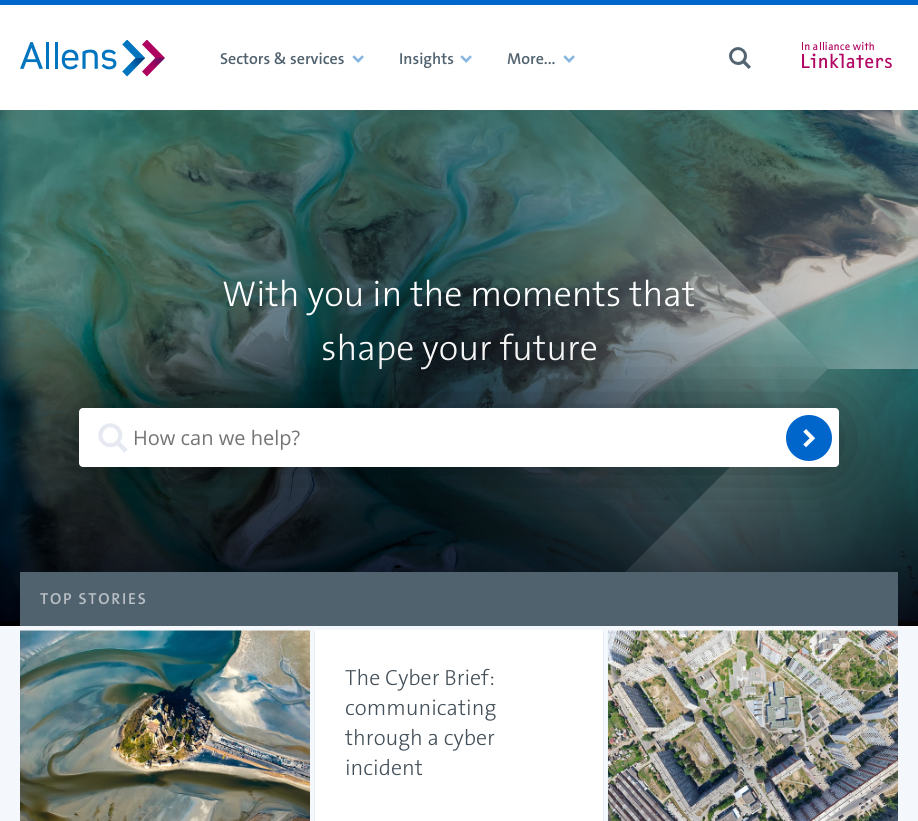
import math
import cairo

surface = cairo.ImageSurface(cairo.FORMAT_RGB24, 918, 821)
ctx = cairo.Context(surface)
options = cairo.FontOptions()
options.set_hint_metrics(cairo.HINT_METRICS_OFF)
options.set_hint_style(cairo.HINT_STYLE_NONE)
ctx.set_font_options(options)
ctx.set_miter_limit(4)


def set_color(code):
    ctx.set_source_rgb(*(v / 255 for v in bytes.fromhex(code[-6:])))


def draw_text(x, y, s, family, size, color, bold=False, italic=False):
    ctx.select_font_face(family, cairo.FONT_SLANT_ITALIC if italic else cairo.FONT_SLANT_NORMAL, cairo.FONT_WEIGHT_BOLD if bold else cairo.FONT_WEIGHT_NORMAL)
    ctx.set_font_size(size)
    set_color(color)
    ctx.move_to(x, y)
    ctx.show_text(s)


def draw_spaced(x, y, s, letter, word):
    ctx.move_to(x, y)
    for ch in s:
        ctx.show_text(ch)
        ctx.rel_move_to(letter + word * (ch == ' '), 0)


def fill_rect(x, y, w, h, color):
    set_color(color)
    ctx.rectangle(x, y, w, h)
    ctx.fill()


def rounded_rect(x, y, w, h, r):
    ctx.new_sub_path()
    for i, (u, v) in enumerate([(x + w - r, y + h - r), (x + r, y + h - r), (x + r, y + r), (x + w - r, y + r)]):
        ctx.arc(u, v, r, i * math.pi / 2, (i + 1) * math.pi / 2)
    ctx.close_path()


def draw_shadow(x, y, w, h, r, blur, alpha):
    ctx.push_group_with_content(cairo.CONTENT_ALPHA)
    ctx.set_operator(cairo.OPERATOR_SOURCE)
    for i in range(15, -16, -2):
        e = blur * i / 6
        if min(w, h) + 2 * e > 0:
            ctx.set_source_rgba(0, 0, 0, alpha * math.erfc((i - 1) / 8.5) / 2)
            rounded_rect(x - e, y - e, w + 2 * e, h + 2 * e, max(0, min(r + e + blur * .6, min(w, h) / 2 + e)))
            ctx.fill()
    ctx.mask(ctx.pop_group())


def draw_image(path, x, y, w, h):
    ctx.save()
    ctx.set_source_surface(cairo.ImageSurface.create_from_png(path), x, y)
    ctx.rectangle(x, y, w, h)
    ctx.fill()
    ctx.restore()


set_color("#0066cc")
ctx.paint()
fill_rect(0, 5, 918, 105, "#ffffff")
draw_image("assets/img1.png", 20, 40, 145, 37)
draw_text(220, 64, "Sectors & services", "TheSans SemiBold", 16, "#51626f")
draw_image("assets/img2.png", 352, 55, 12, 8)
draw_text(399, 64, "Insights", "TheSans SemiBold", 16, "#51626f")
draw_image("assets/img2.png", 460, 55, 12, 8)
draw_text(507, 64, "More...", "TheSans SemiBold", 16, "#51626f")
draw_image("assets/img2.png", 563, 55, 12, 8)
draw_image("assets/img3.png", 729, 47, 22, 22)
draw_image("assets/img4.png", 802, 42, 90, 26)
fill_rect(0, 110, 918, 516, "#000000")
draw_image("assets/img5.png", 0, 110, 918, 511)
gradient = cairo.RadialGradient(823, 273, 0, 823, 273, 529)
gradient.add_color_stop_rgba(0, 1, 1, 1, 0.56)
gradient.add_color_stop_rgba(0.15, 1, 1, 1, 0.41)
gradient.add_color_stop_rgba(0.29, 1, 1, 1, 0.29)
gradient.add_color_stop_rgba(0.44, 1, 1, 1, 0.18)
gradient.add_color_stop_rgba(0.58, 1, 1, 1, 0.1)
gradient.add_color_stop_rgba(0.72, 1, 1, 1, 0.05)
gradient.add_color_stop_rgba(0.86, 1, 1, 1, 0.01)
gradient.add_color_stop_rgba(1, 1, 1, 1, 0)
ctx.set_source(gradient)
ctx.new_path()
ctx.move_to(828, 369)
ctx.line_to(406, -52)
ctx.line_to(-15, -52)
ctx.line_to(-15, 791)
ctx.line_to(406, 791)
ctx.close_path()
ctx.fill()
gradient = cairo.RadialGradient(871, 411, 0, 871, 411, 444)
gradient.add_color_stop_rgba(0, 1, 1, 1, 0.56)
gradient.add_color_stop_rgba(0.15, 1, 1, 1, 0.41)
gradient.add_color_stop_rgba(0.29, 1, 1, 1, 0.29)
gradient.add_color_stop_rgba(0.44, 1, 1, 1, 0.18)
gradient.add_color_stop_rgba(0.58, 1, 1, 1, 0.1)
gradient.add_color_stop_rgba(0.72, 1, 1, 1, 0.05)
gradient.add_color_stop_rgba(0.86, 1, 1, 1, 0.01)
gradient.add_color_stop_rgba(1, 1, 1, 1, 0)
ctx.set_source(gradient)
ctx.new_path()
ctx.move_to(406, -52)
ctx.line_to(828, 369)
ctx.line_to(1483, 369)
ctx.line_to(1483, -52)
ctx.close_path()
ctx.fill()
gradient = cairo.RadialGradient(701, 387, 0, 701, 387, 390)
gradient.add_color_stop_rgba(0, 1, 1, 1, 0.56)
gradient.add_color_stop_rgba(0.15, 1, 1, 1, 0.41)
gradient.add_color_stop_rgba(0.29, 1, 1, 1, 0.29)
gradient.add_color_stop_rgba(0.44, 1, 1, 1, 0.18)
gradient.add_color_stop_rgba(0.58, 1, 1, 1, 0.1)
gradient.add_color_stop_rgba(0.72, 1, 1, 1, 0.05)
gradient.add_color_stop_rgba(0.86, 1, 1, 1, 0.01)
gradient.add_color_stop_rgba(1, 1, 1, 1, 0)
ctx.set_source(gradient)
ctx.new_path()
ctx.move_to(406, 791)
ctx.line_to(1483, 791)
ctx.line_to(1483, 369)
ctx.line_to(828, 369)
ctx.close_path()
ctx.fill()
draw_text(222, 306, "With you in the moments that", "TheSans Light", 36, "#ffffff")
draw_text(321, 360, "shape your future", "TheSans Light", 36, "#ffffff")
fill_rect(20, 572, 878, 54, "#51626f")
set_color("#000000")
draw_shadow(79, 410, 760, 59, 6, 37, 0.5)
set_color("#ffffff")
rounded_rect(79, 408, 760, 59, 4)
ctx.fill()
draw_image("assets/img6.png", 98, 423, 30, 30)
draw_text(133, 445, "How can we help?", "Open Sans", 20, "#757575")
set_color("#0066cc")
ctx.new_path()
ctx.arc(809, 438, 23, 0, 2 * math.pi)
ctx.fill()
draw_image("assets/img7.png", 803, 429, 13, 19)
fill_rect(0, 626, 918, 195, "#f4f8fc")
ctx.select_font_face("TheSans SemiBold")
ctx.set_font_size(16)
set_color("#b9c0c5")
draw_spaced(40, 604, "TOP STORIES", 1.75, 0)
draw_image("assets/img8.png", 20, 630, 290, 191)
fill_rect(314, 630, 290, 191, "#ffffff")
fill_rect(603, 631, 1, 190, "#e8eef5")
fill_rect(314, 631, 1, 190, "#e8eef5")
draw_text(345, 685, "The Cyber Brief:", "TheSans Light", 22, "#445059")
draw_text(345, 715, "communicating", "TheSans Light", 22, "#445059")
draw_text(345, 745, "through a cyber", "TheSans Light", 22, "#445059")
draw_text(345, 775, "incident", "TheSans Light", 22, "#445059")
draw_image("assets/img9.png", 608, 630, 290, 191)
surface.write_to_png("output.png")
